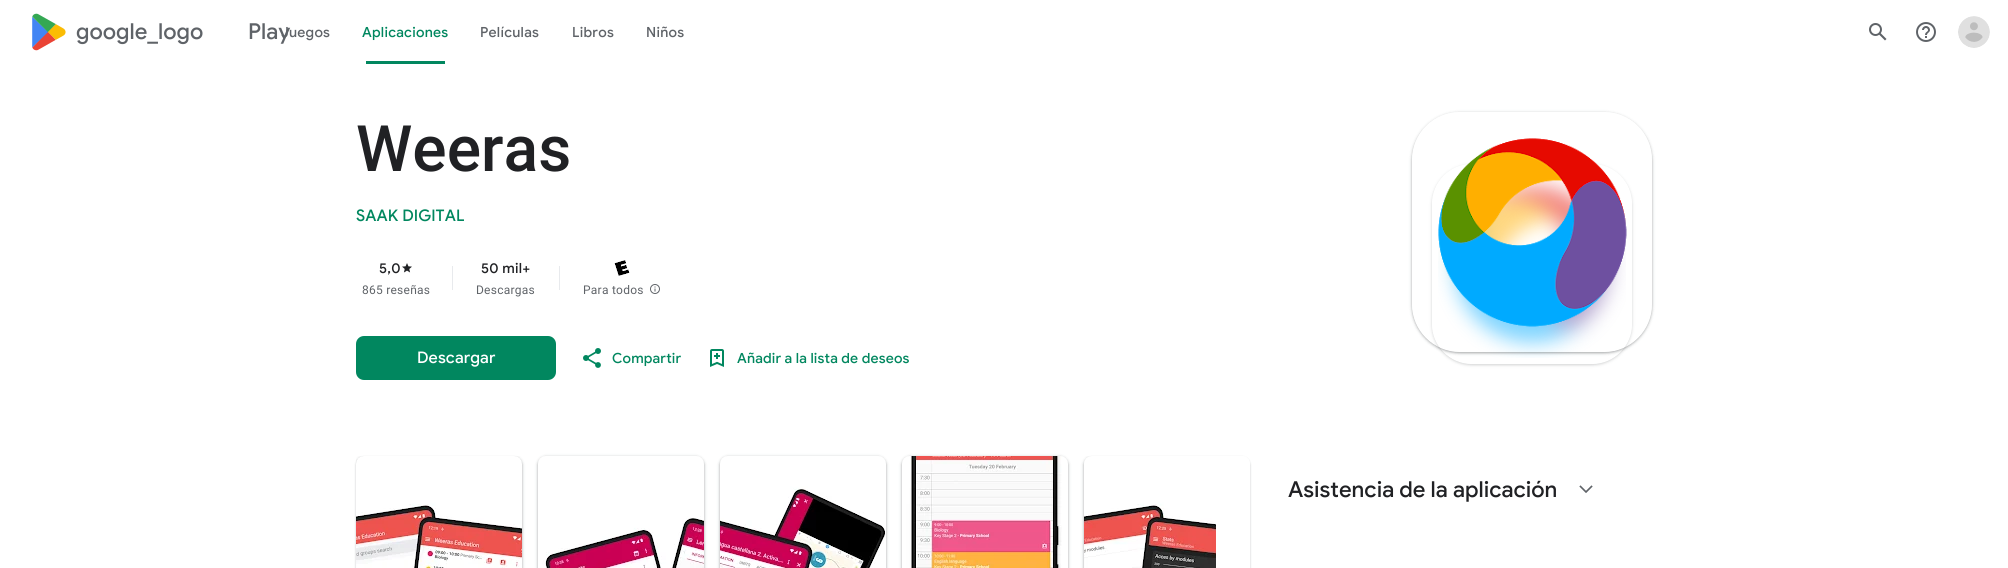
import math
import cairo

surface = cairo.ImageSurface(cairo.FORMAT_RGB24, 2008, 568)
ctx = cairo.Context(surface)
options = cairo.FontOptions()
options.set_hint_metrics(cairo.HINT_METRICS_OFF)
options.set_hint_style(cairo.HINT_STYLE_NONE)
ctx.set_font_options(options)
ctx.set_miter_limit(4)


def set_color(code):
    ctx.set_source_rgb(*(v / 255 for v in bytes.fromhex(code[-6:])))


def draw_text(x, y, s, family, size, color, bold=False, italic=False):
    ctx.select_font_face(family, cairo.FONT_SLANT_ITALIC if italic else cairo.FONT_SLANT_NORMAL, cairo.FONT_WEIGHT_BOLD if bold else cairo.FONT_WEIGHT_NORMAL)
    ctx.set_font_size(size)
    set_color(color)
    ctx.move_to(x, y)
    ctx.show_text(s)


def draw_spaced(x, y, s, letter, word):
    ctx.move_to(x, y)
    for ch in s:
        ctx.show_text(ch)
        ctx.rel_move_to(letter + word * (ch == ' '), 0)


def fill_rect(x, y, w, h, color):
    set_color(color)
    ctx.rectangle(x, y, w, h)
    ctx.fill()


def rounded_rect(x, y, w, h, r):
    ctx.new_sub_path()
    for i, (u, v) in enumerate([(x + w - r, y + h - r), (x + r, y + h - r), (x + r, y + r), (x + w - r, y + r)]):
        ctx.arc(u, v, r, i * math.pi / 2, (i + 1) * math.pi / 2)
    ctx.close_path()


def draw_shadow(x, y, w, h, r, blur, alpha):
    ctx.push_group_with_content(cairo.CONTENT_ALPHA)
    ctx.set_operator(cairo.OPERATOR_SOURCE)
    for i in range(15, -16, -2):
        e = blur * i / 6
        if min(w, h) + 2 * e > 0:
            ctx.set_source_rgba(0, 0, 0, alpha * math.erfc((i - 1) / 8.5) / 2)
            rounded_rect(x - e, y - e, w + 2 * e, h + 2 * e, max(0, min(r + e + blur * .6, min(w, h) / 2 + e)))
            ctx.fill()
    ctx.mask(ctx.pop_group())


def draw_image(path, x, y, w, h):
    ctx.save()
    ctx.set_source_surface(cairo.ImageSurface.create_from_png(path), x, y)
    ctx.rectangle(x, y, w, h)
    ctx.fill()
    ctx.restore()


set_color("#ffffff")
ctx.paint()
draw_image("assets/img1.png", 32, 13, 34, 38)
ctx.select_font_face("Google Sans Medium")
ctx.set_font_size(22)
set_color("#5f6368")
draw_spaced(76, 39, "google_logo", 0, 55)
draw_spaced(248, 39, "Play", 0, 55)
ctx.set_font_size(14)
draw_spaced(281, 37, "Juegos", 0.25, 0)
set_color("#01875f")
draw_spaced(362, 37, "Aplicaciones", 0.25, 0)
fill_rect(366, 61, 79, 3, "#01875f")
set_color("#5f6368")
draw_spaced(480, 37, "Películas", 0.25, 0)
draw_spaced(572, 37, "Libros", 0.25, 0)
draw_spaced(646, 37, "Niños", 0.25, 0)
draw_image("assets/img2.png", 1869, 23, 18, 18)
draw_image("assets/img3.png", 1916, 22, 20, 20)
draw_image("assets/img4.png", 1958, 16, 32, 32)
draw_text(356, 171, "Weeras", "Roboto Medium", 64, "#202124")
ctx.select_font_face("Google Sans Medium")
ctx.set_font_size(16)
set_color("#01875f")
draw_spaced(356, 221, "SAAK DIGITAL", 0.1, 0)
ctx.set_font_size(14)
set_color("#202124")
draw_spaced(379, 273, "5,0", 0.25, 0)
draw_image("assets/img5.png", 402, 263, 10, 10)
ctx.select_font_face("Roboto")
ctx.set_font_size(12)
set_color("#5f6368")
draw_spaced(362, 294, "865 reseñas", 0.25, 0)
fill_rect(452, 266, 1, 24, "#e8eaed")
ctx.select_font_face("Google Sans Medium")
ctx.set_font_size(14)
set_color("#202124")
draw_spaced(481, 273, "50 mil+", 0.25, 0)
ctx.select_font_face("Roboto")
ctx.set_font_size(12)
set_color("#5f6368")
draw_spaced(476, 294, "Descargas", 0.25, 0)
fill_rect(559, 266, 1, 24, "#e8eaed")
draw_image("assets/img6.png", 614, 260, 16, 16)
set_color("#5f6368")
draw_spaced(583, 294, "Para todos", 0.25, 0)
draw_image("assets/img7.png", 650, 284, 10, 10)
ctx.save()
ctx.set_fill_rule(cairo.FILL_RULE_EVEN_ODD)
ctx.new_path()
ctx.move_to(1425, 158)
ctx.line_to(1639, 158)
ctx.line_to(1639, 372)
ctx.line_to(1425, 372)
ctx.close_path()
ctx.move_to(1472, 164)
ctx.line_to(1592, 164)
ctx.curve_to(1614, 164, 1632, 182, 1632, 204)
ctx.line_to(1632, 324)
ctx.curve_to(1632, 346, 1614, 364, 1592, 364)
ctx.line_to(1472, 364)
ctx.curve_to(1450, 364, 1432, 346, 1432, 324)
ctx.line_to(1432, 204)
ctx.curve_to(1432, 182, 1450, 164, 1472, 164)
ctx.close_path()
ctx.clip()
set_color("#9ea0a1")
draw_shadow(1431, 164, 202, 202, 41, 1.5, 0.15)
ctx.restore()
ctx.save()
ctx.set_fill_rule(cairo.FILL_RULE_EVEN_ODD)
ctx.new_path()
ctx.move_to(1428, 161)
ctx.line_to(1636, 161)
ctx.line_to(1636, 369)
ctx.line_to(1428, 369)
ctx.close_path()
ctx.move_to(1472, 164)
ctx.line_to(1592, 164)
ctx.curve_to(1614, 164, 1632, 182, 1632, 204)
ctx.line_to(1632, 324)
ctx.curve_to(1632, 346, 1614, 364, 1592, 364)
ctx.line_to(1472, 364)
ctx.curve_to(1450, 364, 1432, 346, 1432, 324)
ctx.line_to(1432, 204)
ctx.curve_to(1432, 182, 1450, 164, 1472, 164)
ctx.close_path()
ctx.clip()
set_color("#9ea0a1")
draw_shadow(1432, 165, 200, 200, 40, 1, 0.3)
ctx.restore()
draw_image("assets/img9.png", 1438, 174, 188, 184)
ctx.save()
ctx.set_fill_rule(cairo.FILL_RULE_EVEN_ODD)
ctx.new_path()
ctx.move_to(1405, 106)
ctx.line_to(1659, 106)
ctx.line_to(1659, 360)
ctx.line_to(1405, 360)
ctx.close_path()
ctx.move_to(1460, 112)
ctx.line_to(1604, 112)
ctx.curve_to(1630.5, 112, 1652, 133.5, 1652, 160)
ctx.line_to(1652, 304)
ctx.curve_to(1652, 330.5, 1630.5, 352, 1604, 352)
ctx.line_to(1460, 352)
ctx.curve_to(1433.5, 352, 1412, 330.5, 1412, 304)
ctx.line_to(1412, 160)
ctx.curve_to(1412, 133.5, 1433.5, 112, 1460, 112)
ctx.close_path()
ctx.clip()
set_color("#3c4043")
draw_shadow(1411, 112, 242, 242, 49, 1.5, 0.15)
ctx.restore()
ctx.save()
ctx.set_fill_rule(cairo.FILL_RULE_EVEN_ODD)
ctx.new_path()
ctx.move_to(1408, 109)
ctx.line_to(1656, 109)
ctx.line_to(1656, 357)
ctx.line_to(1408, 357)
ctx.close_path()
ctx.move_to(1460, 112)
ctx.line_to(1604, 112)
ctx.curve_to(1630.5, 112, 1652, 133.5, 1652, 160)
ctx.line_to(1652, 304)
ctx.curve_to(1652, 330.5, 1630.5, 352, 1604, 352)
ctx.line_to(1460, 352)
ctx.curve_to(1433.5, 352, 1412, 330.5, 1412, 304)
ctx.line_to(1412, 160)
ctx.curve_to(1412, 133.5, 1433.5, 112, 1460, 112)
ctx.close_path()
ctx.clip()
set_color("#3c4043")
draw_shadow(1412, 113, 240, 240, 48, 1, 0.3)
ctx.restore()
draw_image("assets/img8.png", 1438, 138, 189, 189)
set_color("#01875f")
rounded_rect(356, 336, 200, 44, 8)
ctx.fill()
ctx.select_font_face("Google Sans Medium")
ctx.set_font_size(16)
set_color("#ffffff")
draw_spaced(417, 363, "Descargar", 0.1, 0)
draw_image("assets/img10.png", 583, 348, 18, 20)
ctx.set_font_size(14)
set_color("#01875f")
draw_spaced(612, 363, "Compartir", 0.15, 0)
draw_image("assets/img11.png", 710, 349, 14, 18)
draw_spaced(737, 363, "Añadir a la lista de deseos", 0.15, 0)
ctx.save()
ctx.rectangle(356, 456, 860, 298)
ctx.clip()
set_color("#3c4043")
draw_shadow(355, 456, 168, 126, 9, 1.5, 0.15)
ctx.restore()
set_color("#3c4043")
draw_shadow(356, 457, 166, 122, 8, 1, 0.3)
draw_image("assets/img12.png", 356, 456, 166, 112)
ctx.save()
ctx.set_fill_rule(cairo.FILL_RULE_EVEN_ODD)
ctx.new_path()
ctx.move_to(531, 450)
ctx.line_to(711, 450)
ctx.line_to(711, 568)
ctx.line_to(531, 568)
ctx.close_path()
ctx.move_to(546, 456)
ctx.line_to(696, 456)
ctx.curve_to(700.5, 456, 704, 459.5, 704, 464)
ctx.line_to(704, 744)
ctx.curve_to(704, 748.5, 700.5, 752, 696, 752)
ctx.line_to(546, 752)
ctx.curve_to(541.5, 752, 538, 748.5, 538, 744)
ctx.line_to(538, 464)
ctx.curve_to(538, 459.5, 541.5, 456, 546, 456)
ctx.close_path()
ctx.clip()
draw_shadow(537, 456, 168, 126, 9, 1.5, 0.15)
ctx.restore()
draw_shadow(538, 457, 166, 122, 8, 1, 0.3)
draw_image("assets/img13.png", 538, 456, 166, 112)
ctx.save()
ctx.set_fill_rule(cairo.FILL_RULE_EVEN_ODD)
ctx.new_path()
ctx.move_to(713, 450)
ctx.line_to(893, 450)
ctx.line_to(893, 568)
ctx.line_to(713, 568)
ctx.close_path()
ctx.move_to(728, 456)
ctx.line_to(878, 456)
ctx.curve_to(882.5, 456, 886, 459.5, 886, 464)
ctx.line_to(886, 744)
ctx.curve_to(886, 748.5, 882.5, 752, 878, 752)
ctx.line_to(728, 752)
ctx.curve_to(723.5, 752, 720, 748.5, 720, 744)
ctx.line_to(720, 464)
ctx.curve_to(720, 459.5, 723.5, 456, 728, 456)
ctx.close_path()
ctx.clip()
draw_shadow(719, 456, 168, 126, 9, 1.5, 0.15)
ctx.restore()
draw_shadow(720, 457, 166, 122, 8, 1, 0.3)
draw_image("assets/img14.png", 720, 456, 166, 112)
ctx.save()
ctx.set_fill_rule(cairo.FILL_RULE_EVEN_ODD)
ctx.new_path()
ctx.move_to(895, 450)
ctx.line_to(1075, 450)
ctx.line_to(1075, 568)
ctx.line_to(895, 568)
ctx.close_path()
ctx.move_to(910, 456)
ctx.line_to(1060, 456)
ctx.curve_to(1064.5, 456, 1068, 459.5, 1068, 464)
ctx.line_to(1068, 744)
ctx.curve_to(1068, 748.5, 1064.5, 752, 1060, 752)
ctx.line_to(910, 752)
ctx.curve_to(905.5, 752, 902, 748.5, 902, 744)
ctx.line_to(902, 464)
ctx.curve_to(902, 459.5, 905.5, 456, 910, 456)
ctx.close_path()
ctx.clip()
draw_shadow(901, 456, 168, 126, 9, 1.5, 0.15)
ctx.restore()
draw_shadow(902, 457, 166, 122, 8, 1, 0.3)
draw_image("assets/img15.png", 902, 456, 166, 112)
ctx.save()
ctx.rectangle(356, 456, 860, 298)
ctx.clip()
draw_shadow(1083, 456, 168, 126, 9, 1.5, 0.15)
ctx.restore()
ctx.save()
ctx.set_fill_rule(cairo.FILL_RULE_EVEN_ODD)
ctx.new_path()
ctx.move_to(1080, 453)
ctx.line_to(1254, 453)
ctx.line_to(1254, 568)
ctx.line_to(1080, 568)
ctx.close_path()
ctx.move_to(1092, 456)
ctx.line_to(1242, 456)
ctx.curve_to(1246.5, 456, 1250, 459.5, 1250, 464)
ctx.line_to(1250, 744)
ctx.curve_to(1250, 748.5, 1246.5, 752, 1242, 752)
ctx.line_to(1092, 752)
ctx.curve_to(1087.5, 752, 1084, 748.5, 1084, 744)
ctx.line_to(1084, 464)
ctx.curve_to(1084, 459.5, 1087.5, 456, 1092, 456)
ctx.close_path()
ctx.clip()
draw_shadow(1084, 457, 166, 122, 8, 1, 0.3)
ctx.restore()
draw_image("assets/img16.png", 1084, 456, 132, 112)
draw_text(1288, 497, "Asistencia de la aplicación", "Google Sans Medium", 22, "#202124")
draw_image("assets/img17.png", 1579, 485, 14, 8)
surface.write_to_png("output.png")
